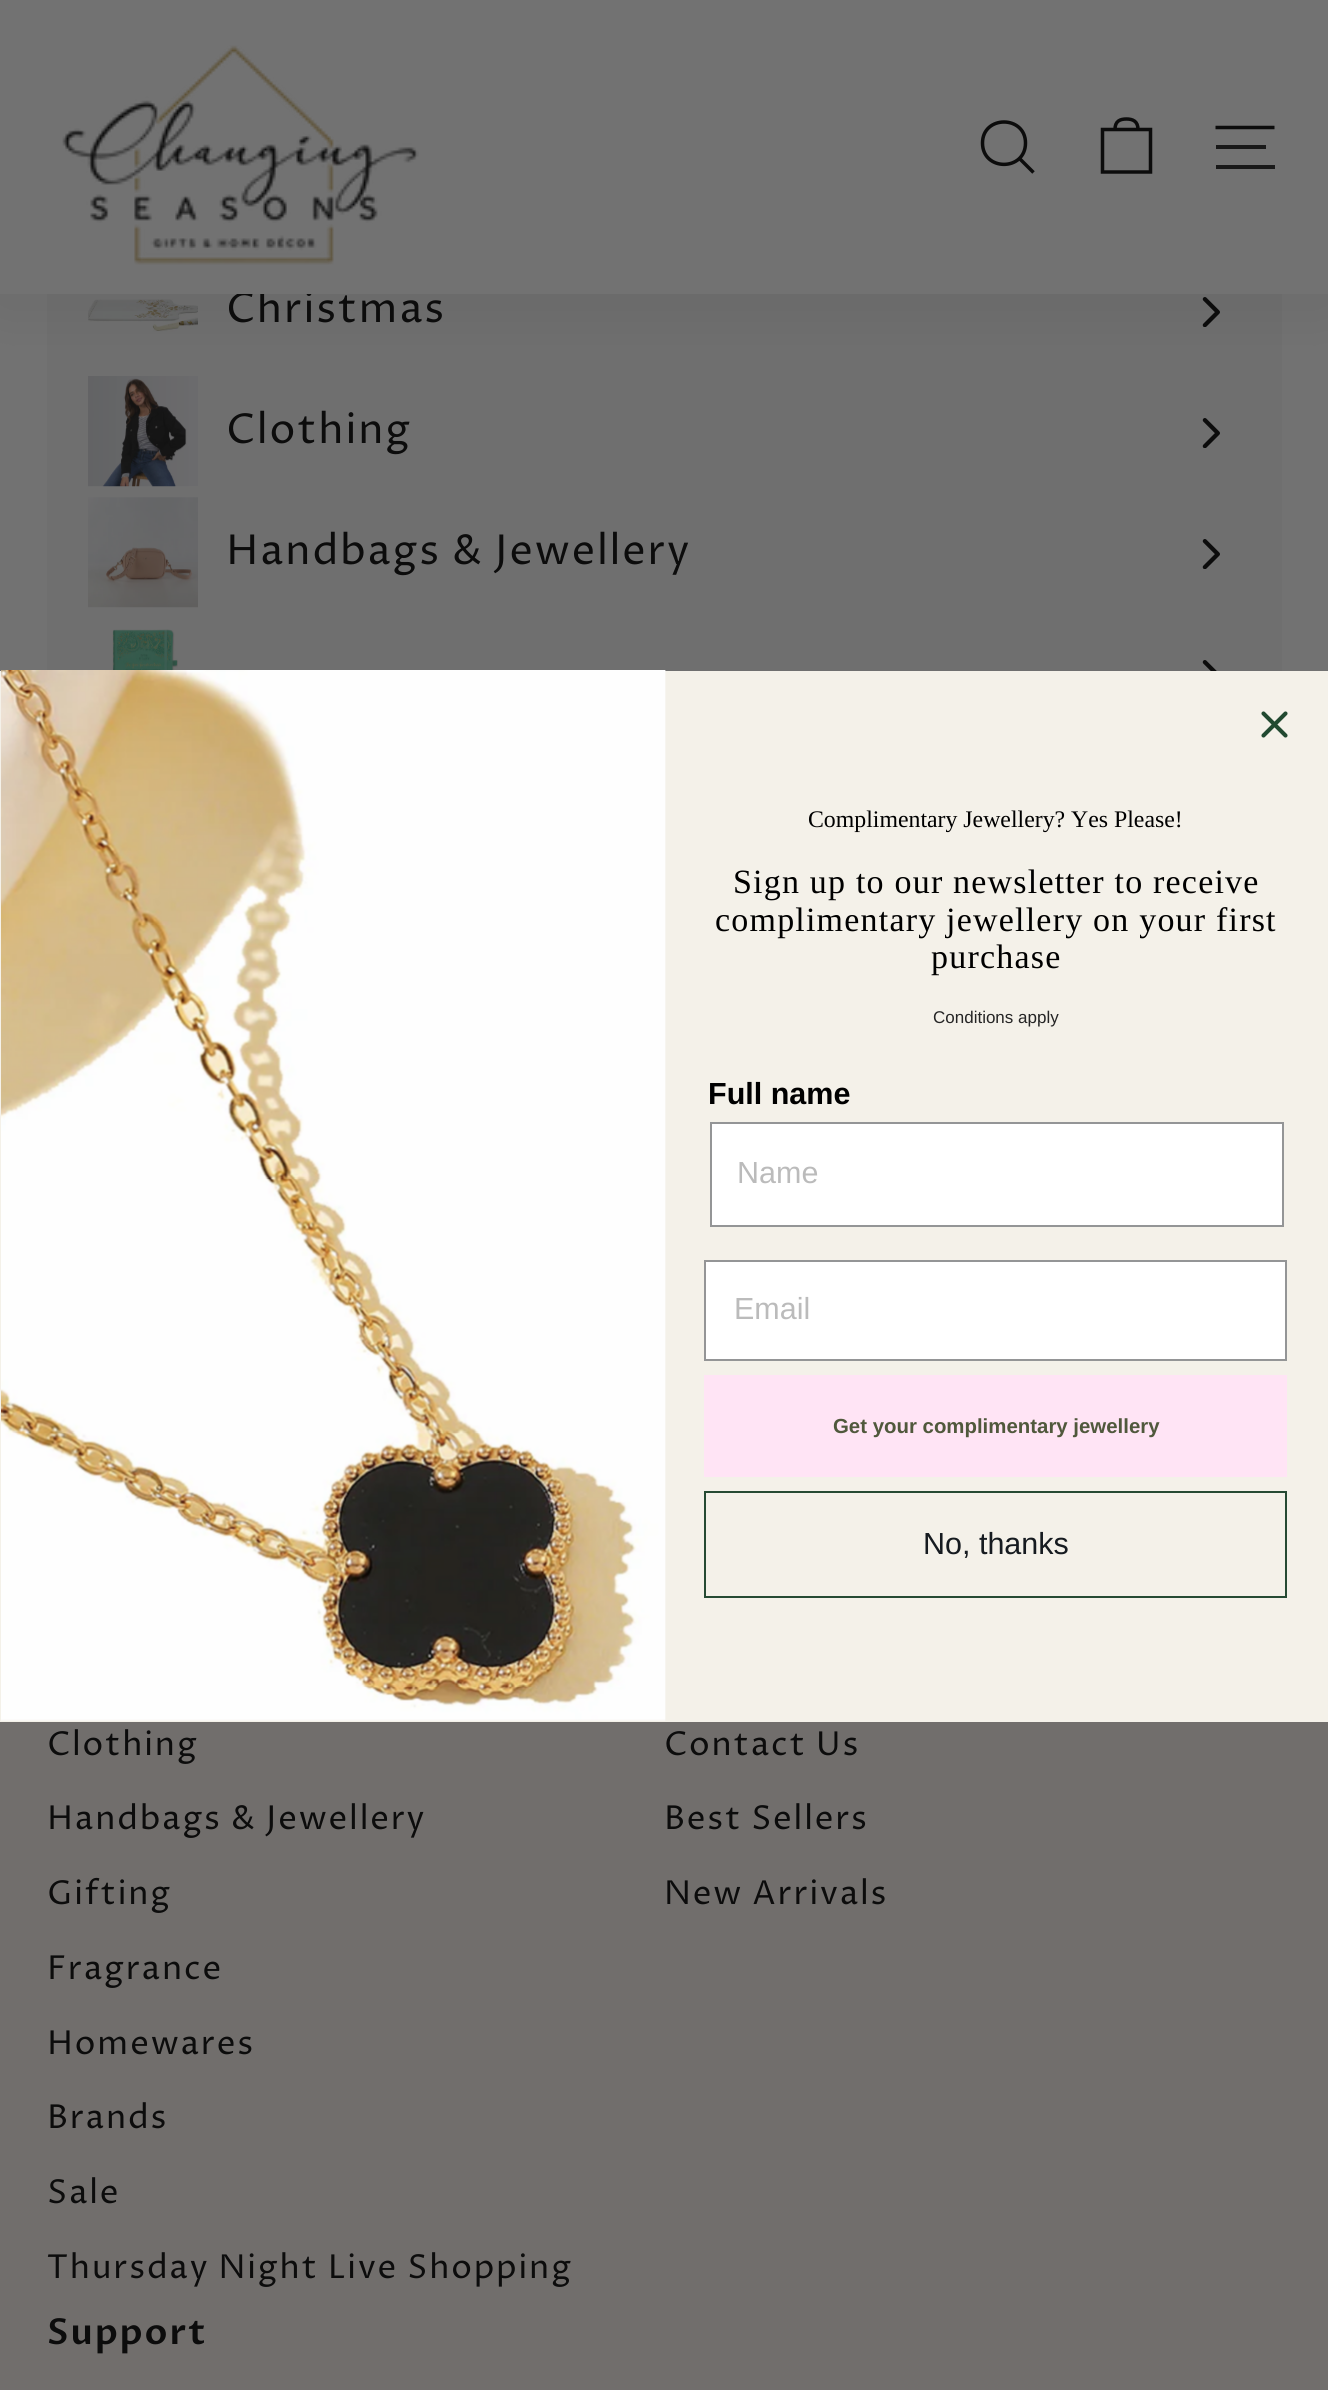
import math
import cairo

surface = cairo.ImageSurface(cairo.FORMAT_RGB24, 1328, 2390)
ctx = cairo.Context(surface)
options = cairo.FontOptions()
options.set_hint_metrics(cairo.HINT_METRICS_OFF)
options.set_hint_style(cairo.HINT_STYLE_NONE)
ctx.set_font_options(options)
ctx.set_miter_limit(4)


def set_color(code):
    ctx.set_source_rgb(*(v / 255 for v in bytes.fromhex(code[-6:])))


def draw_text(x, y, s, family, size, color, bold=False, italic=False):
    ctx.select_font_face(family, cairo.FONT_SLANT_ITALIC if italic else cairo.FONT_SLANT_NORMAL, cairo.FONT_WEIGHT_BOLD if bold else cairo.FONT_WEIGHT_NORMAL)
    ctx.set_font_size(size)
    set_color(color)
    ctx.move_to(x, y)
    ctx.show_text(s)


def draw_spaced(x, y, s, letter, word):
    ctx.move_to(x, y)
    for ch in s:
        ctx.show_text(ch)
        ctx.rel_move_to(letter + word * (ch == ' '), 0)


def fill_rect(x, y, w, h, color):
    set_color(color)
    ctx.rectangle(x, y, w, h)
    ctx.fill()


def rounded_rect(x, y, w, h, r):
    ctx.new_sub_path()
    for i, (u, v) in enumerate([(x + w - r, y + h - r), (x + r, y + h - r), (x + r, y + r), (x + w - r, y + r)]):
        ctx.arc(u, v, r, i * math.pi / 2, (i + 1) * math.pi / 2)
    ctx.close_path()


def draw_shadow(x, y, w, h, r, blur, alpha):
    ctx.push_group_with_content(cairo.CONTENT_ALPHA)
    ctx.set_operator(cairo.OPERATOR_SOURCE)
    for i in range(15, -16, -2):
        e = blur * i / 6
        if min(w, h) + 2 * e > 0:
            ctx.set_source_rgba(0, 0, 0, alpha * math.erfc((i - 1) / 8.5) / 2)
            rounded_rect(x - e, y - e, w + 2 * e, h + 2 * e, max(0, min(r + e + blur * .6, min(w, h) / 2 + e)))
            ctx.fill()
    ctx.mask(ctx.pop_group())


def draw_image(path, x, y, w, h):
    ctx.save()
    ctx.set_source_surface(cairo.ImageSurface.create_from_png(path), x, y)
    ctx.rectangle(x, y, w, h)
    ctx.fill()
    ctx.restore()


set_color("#727272")
ctx.paint()
fill_rect(47, 294, 1235, 377, "#6f6f6f")
draw_image("assets/img2.png", 88, 299, 110, 33)
draw_image("assets/img3.png", 1202, 297, 18, 30)
draw_image("assets/img4.png", 88, 376, 110, 111)
set_color("#0c0c0c")
draw_shadow(0, 0, 1328, 294, 0, 34.5, 0.1)
ctx.select_font_face("Proza Libre")
ctx.set_font_size(41.25)
set_color("#0c0c0c")
draw_spaced(226, 322, "Christmas", 1.8, 0)
fill_rect(0, 0, 1328, 294, "#727272")
draw_image("assets/img1.png", 62, 45, 357, 220)
ctx.new_path()
ctx.move_to(1025.5, 143)
ctx.curve_to(1025.5, 171.5, 982.5, 171.5, 982.5, 143)
ctx.curve_to(982.5, 115, 1025.5, 115, 1025.5, 143)
ctx.close_path()
ctx.move_to(1033.5, 172.5)
ctx.line_to(1019.5, 158.5)
set_color("#0c0c0c")
ctx.set_line_width(3.5)
ctx.stroke()
ctx.new_path()
ctx.move_to(1115, 129.5)
ctx.curve_to(1115, 121, 1120, 119, 1126.5, 119)
ctx.curve_to(1132.5, 119, 1138, 121, 1138, 129.5)
ctx.move_to(1102.5, 129.5)
ctx.line_to(1150.5, 129.5)
ctx.line_to(1150.5, 172)
ctx.line_to(1102.5, 172)
ctx.close_path()
ctx.stroke()
ctx.new_path()
ctx.move_to(1215.5, 127.5)
ctx.line_to(1274.5, 127.5)
ctx.stroke()
fill_rect(1216, 145, 50, 4, "#191919")
fill_rect(1216, 165, 59, 4, "#191919")
set_color("#0c0c0c")
draw_spaced(226, 443, "Clothing", 1.8, 0)
draw_image("assets/img3.png", 1202, 418, 18, 30)
draw_image("assets/img5.png", 88, 497, 110, 111)
draw_spaced(226, 564, "Handbags & Jewellery", 1.8, 0)
draw_image("assets/img3.png", 1202, 539, 18, 30)
draw_image("assets/img6.png", 112, 629, 66, 41)
draw_image("assets/img7.png", 1202, 660, 15, 11)
fill_rect(0, 1722, 1328, 668, "#716e6c")
ctx.set_font_size(33)
set_color("#0c0c0c")
draw_spaced(47, 1755, "Clothing", 1.8, 0)
draw_spaced(47, 1829, "Handbags & Jewellery", 1.8, 0)
draw_spaced(47, 1904, "Gifting", 1.8, 0)
draw_spaced(47, 1979, "Fragrance", 1.8, 0)
draw_spaced(47, 2054, "Homewares", 1.8, 0)
draw_spaced(47, 2128, "Brands", 1.8, 0)
draw_spaced(47, 2203, "Sale", 1.8, 0)
draw_spaced(47, 2278, "Thursday Night Live Shopping", 1.8, 0)
draw_spaced(664, 1755, "Contact Us", 1.8, 0)
draw_spaced(664, 1829, "Best Sellers", 1.8, 0)
draw_spaced(664, 1904, "New Arrivals", 1.8, 0)
ctx.select_font_face("Proza Libre SemiBold")
ctx.set_font_size(35.75)
draw_spaced(47, 2344, "Support", 1.8, 0)
fill_rect(0, 671, 1328, 1051, "#f4f1e9")
ctx.new_path()
ctx.move_to(1263.5, 713.5)
ctx.line_to(1285.5, 735.5)
ctx.move_to(1263.5, 735.5)
ctx.line_to(1285.5, 713.5)
ctx.close_path()
set_color("#214930")
ctx.set_line_width(4.1)
ctx.set_line_cap(cairo.LINE_CAP_ROUND)
ctx.set_line_join(cairo.LINE_JOIN_ROUND)
ctx.stroke()
draw_image("assets/img8.png", 1, 670, 665, 1051)
draw_text(808, 827, "Complimentary Jewellery? Yes Please!", "Liberation Serif", 23.8, "#000000")
ctx.set_font_size(34)
draw_spaced(733, 893, "Sign up to our newsletter to receive", 1.2, 0)
draw_spaced(715, 931, "complimentary jewellery on your first", 1.2, 0)
draw_spaced(931, 968, "purchase", 1.2, 0)
draw_text(933, 1023, "Conditions apply", "Liberation Sans", 17, "#252525")
draw_text(708, 1104, "Full name", "Liberation Sans", 30.5, "#000000", bold=True)
set_color("#ffffff")
ctx.rectangle(711, 1123, 572, 103)
ctx.fill_preserve()
set_color("#949596")
ctx.set_line_width(2)
ctx.set_line_cap(cairo.LINE_CAP_BUTT)
ctx.set_line_join(cairo.LINE_JOIN_MITER)
ctx.stroke()
draw_text(737, 1183, "Name", "Liberation Sans", 30.5, "#bbbbbb")
set_color("#ffffff")
ctx.rectangle(705, 1261, 581, 99)
ctx.fill_preserve()
set_color("#949596")
ctx.stroke()
draw_text(734, 1319, "Email", "Liberation Sans", 30.5, "#bbbbbb")
fill_rect(704, 1375, 583, 102, "#ffe4f5")
draw_text(833, 1433, "Get your complimentary jewellery", "Liberation Sans", 20.4, "#50583c", bold=True)
ctx.rectangle(705, 1492, 581, 105)
set_color("#264a33")
ctx.stroke()
draw_text(923, 1554, "No, thanks", "Liberation Sans", 30.5, "#161b20")
surface.write_to_png("output.png")
